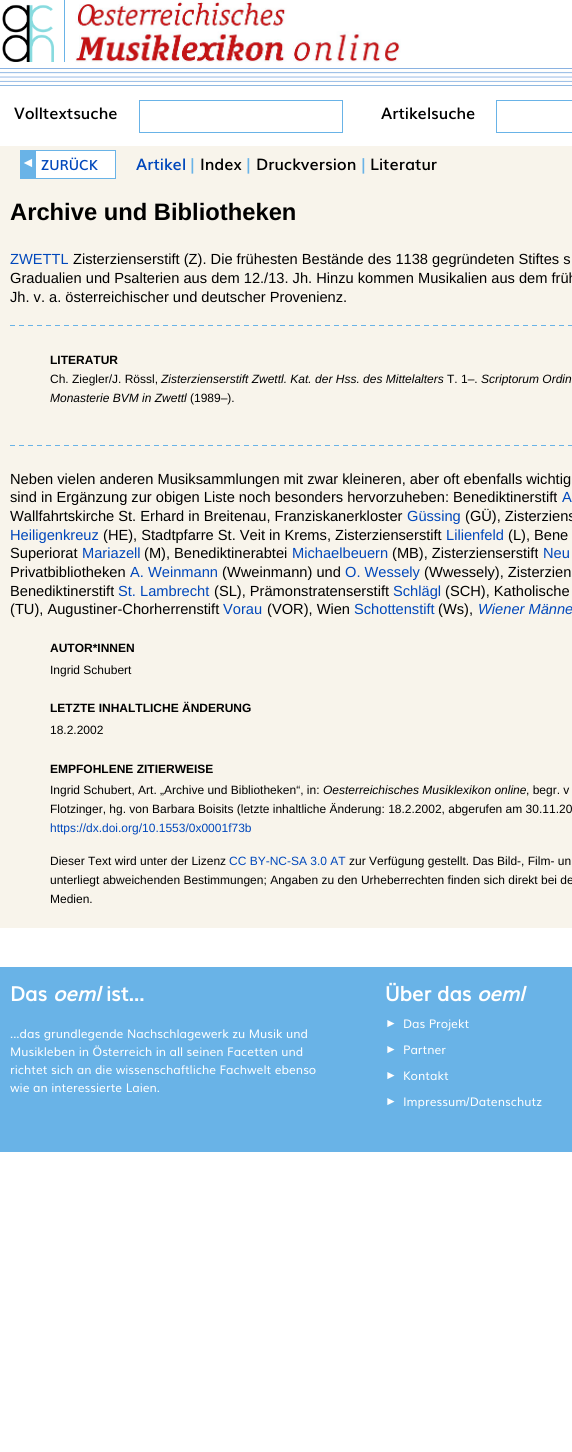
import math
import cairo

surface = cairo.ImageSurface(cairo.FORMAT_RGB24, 572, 1452)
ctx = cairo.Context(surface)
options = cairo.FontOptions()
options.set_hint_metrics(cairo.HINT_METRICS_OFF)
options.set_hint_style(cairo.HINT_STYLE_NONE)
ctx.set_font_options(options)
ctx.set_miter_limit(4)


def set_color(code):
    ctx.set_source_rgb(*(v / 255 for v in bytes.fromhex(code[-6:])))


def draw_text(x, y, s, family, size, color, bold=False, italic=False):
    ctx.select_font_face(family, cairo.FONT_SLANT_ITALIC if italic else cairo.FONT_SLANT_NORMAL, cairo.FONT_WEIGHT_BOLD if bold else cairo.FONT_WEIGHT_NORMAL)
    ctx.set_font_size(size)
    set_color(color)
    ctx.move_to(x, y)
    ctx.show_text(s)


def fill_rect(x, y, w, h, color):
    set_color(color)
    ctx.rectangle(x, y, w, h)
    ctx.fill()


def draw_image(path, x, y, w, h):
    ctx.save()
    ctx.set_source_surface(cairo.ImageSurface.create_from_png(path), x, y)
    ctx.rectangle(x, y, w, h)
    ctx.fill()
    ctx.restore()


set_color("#ffffff")
ctx.paint()
draw_image("assets/img1.png", 2, 4, 52, 58)
fill_rect(64, 0, 1, 62, "#69b3e7")
draw_image("assets/img2.png", 75, 0, 326, 62)
draw_image("assets/img3.png", 0, 68, 572, 18)
draw_text(14, 119, "Volltextsuche", "Muli SemiBold", 16, "#000000")
ctx.rectangle(139.5, 100.5, 203, 32)
set_color("#69b3e7")
ctx.set_line_width(1)
ctx.stroke()
draw_text(381, 119, "Artikelsuche", "Muli SemiBold", 16, "#000000")
ctx.rectangle(496.5, 100.5, 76, 32)
set_color("#69b3e7")
ctx.stroke()
fill_rect(0, 146, 572, 782, "#f8f4eb")
fill_rect(36, 151, 79, 27, "#ffffff")
ctx.rectangle(20.5, 150.5, 95, 28)
set_color("#69b3e7")
ctx.stroke()
fill_rect(21, 151, 15, 27, "#69b3e7")
draw_text(21, 167, "◄", "Liberation Sans", 14, "#ffffff")
draw_text(41, 170, "ZURÜCK", "Muli SemiBold", 14, "#0047bb")
draw_text(136, 170, "Artikel", "Muli SemiBold", 16, "#0047bb")
draw_text(190, 170, "|", "Muli SemiBold", 16, "#69b3e7")
draw_text(200, 170, "Index", "Muli SemiBold", 16, "#000000")
draw_text(246, 170, "|", "Muli SemiBold", 16, "#69b3e7")
draw_text(256, 170, "Druckversion", "Muli SemiBold", 16, "#000000")
draw_text(361, 170, "|", "Muli SemiBold", 16, "#69b3e7")
draw_text(370, 170, "Literatur", "Muli SemiBold", 16, "#000000")
draw_text(10, 220, "Archive und Bibliotheken", "Liberation Sans", 23.75, "#000000", bold=True)
draw_text(10, 264, "ZWETTL", "Liberation Sans", 14.65, "#0047bb")
draw_text(73, 264, "Zisterzienserstift (Z). Die frühesten Bestände des 1138 gegründeten Stiftes s", "Liberation Sans", 14.65, "#000000")
draw_text(10, 283, "Gradualien und Psalterien aus dem 12./13. Jh. Hinzu kommen Musikalien aus dem früh", "Liberation Sans", 14.65, "#000000")
draw_text(10, 302, "Jh. v. a. österreichischer und deutscher Provenienz.", "Liberation Sans", 14.65, "#000000")
draw_image("assets/img4.png", 10, 325, 562, 1)
draw_text(50, 364, "LITERATUR", "Liberation Sans", 12, "#000000", bold=True)
draw_text(50, 383, "Ch. Ziegler/J. Rössl,", "Liberation Sans", 12, "#000000")
draw_text(161, 383, "Zisterzienserstift Zwettl. Kat. der Hss. des Mittelalters", "Liberation Sans", 12, "#000000", italic=True)
draw_text(447, 383, "T. 1–.", "Liberation Sans", 12, "#000000")
draw_text(481, 383, "Scriptorum Ordin", "Liberation Sans", 12, "#000000", italic=True)
draw_text(50, 402, "Monasterie BVM in Zwettl", "Liberation Sans", 12, "#000000", italic=True)
draw_text(190, 402, "(1989–).", "Liberation Sans", 12, "#000000")
draw_image("assets/img4.png", 10, 445, 562, 1)
draw_text(10, 484, "Neben vielen anderen Musiksammlungen mit zwar kleineren, aber oft ebenfalls wichtig", "Liberation Sans", 14.65, "#000000")
draw_text(10, 502, "sind in Ergänzung zur obigen Liste noch besonders hervorzuheben: Benediktinerstift", "Liberation Sans", 14.65, "#000000")
draw_text(562, 502, "A", "Liberation Sans", 14.65, "#0047bb")
draw_text(10, 521, "Wallfahrtskirche St. Erhard in Breitenau, Franziskanerkloster", "Liberation Sans", 14.65, "#000000")
draw_text(407, 521, "Güssing", "Liberation Sans", 14.65, "#0047bb")
draw_text(465, 521, "(GÜ), Zisterziens", "Liberation Sans", 14.65, "#000000")
draw_text(10, 540, "Heiligenkreuz", "Liberation Sans", 14.65, "#0047bb")
draw_text(103, 540, "(HE), Stadtpfarre St. Veit in Krems, Zisterzienserstift", "Liberation Sans", 14.65, "#000000")
draw_text(446, 540, "Lilienfeld", "Liberation Sans", 14.65, "#0047bb")
draw_text(508, 540, "(L), Bene", "Liberation Sans", 14.65, "#000000")
draw_text(10, 558, "Superiorat", "Liberation Sans", 14.65, "#000000")
draw_text(82, 558, "Mariazell", "Liberation Sans", 14.65, "#0047bb")
draw_text(144, 558, "(M), Benediktinerabtei", "Liberation Sans", 14.65, "#000000")
draw_text(292, 558, "Michaelbeuern", "Liberation Sans", 14.65, "#0047bb")
draw_text(392, 558, "(MB), Zisterzienserstift", "Liberation Sans", 14.65, "#000000")
draw_text(543, 558, "Neu", "Liberation Sans", 14.65, "#0047bb")
draw_text(10, 577, "Privatbibliotheken", "Liberation Sans", 14.65, "#000000")
draw_text(130, 577, "A. Weinmann", "Liberation Sans", 14.65, "#0047bb")
draw_text(222, 577, "(Wweinmann) und", "Liberation Sans", 14.65, "#000000")
draw_text(345, 577, "O. Wessely", "Liberation Sans", 14.65, "#0047bb")
draw_text(424, 577, "(Wwessely), Zisterzien", "Liberation Sans", 14.65, "#000000")
draw_text(10, 596, "Benediktinerstift", "Liberation Sans", 14.65, "#000000")
draw_text(118, 596, "St. Lambrecht", "Liberation Sans", 14.65, "#0047bb")
draw_text(214, 596, "(SL), Prämonstratenserstift", "Liberation Sans", 14.65, "#000000")
draw_text(393, 596, "Schlägl", "Liberation Sans", 14.65, "#0047bb")
draw_text(445, 596, "(SCH), Katholische", "Liberation Sans", 14.65, "#000000")
draw_text(10, 614, "(TU), Augustiner-Chorherrenstift", "Liberation Sans", 14.65, "#000000")
draw_text(223, 614, "Vorau", "Liberation Sans", 14.65, "#0047bb")
draw_text(267, 614, "(VOR), Wien", "Liberation Sans", 14.65, "#000000")
draw_text(354, 614, "Schottenstift", "Liberation Sans", 14.65, "#0047bb")
draw_text(438, 614, "(Ws),", "Liberation Sans", 14.65, "#000000")
draw_text(478, 614, "Wiener Männe", "Liberation Sans", 14.65, "#0047bb", italic=True)
draw_text(50, 652, "AUTOR*INNEN", "Liberation Sans", 12, "#000000", bold=True)
draw_text(50, 674, "Ingrid Schubert", "Liberation Sans", 12, "#000000")
draw_text(50, 712, "LETZTE INHALTLICHE ÄNDERUNG", "Liberation Sans", 12, "#000000", bold=True)
draw_text(50, 734, "18.2.2002", "Liberation Sans", 12, "#000000")
draw_text(50, 773, "EMPFOHLENE ZITIERWEISE", "Liberation Sans", 12, "#000000", bold=True)
draw_text(50, 794, "Ingrid Schubert, Art. „Archive und Bibliotheken“, in:", "Liberation Sans", 12, "#000000")
draw_text(323, 794, "Oesterreichisches Musiklexikon online", "Liberation Sans", 12, "#000000", italic=True)
draw_text(526, 794, ", begr. v", "Liberation Sans", 12, "#000000")
draw_text(50, 813, "Flotzinger, hg. von Barbara Boisits (letzte inhaltliche Änderung: 18.2.2002, abgerufen am 30.11.20", "Liberation Sans", 12, "#000000")
draw_text(50, 832, "https://dx.doi.org/10.1553/0x0001f73b", "Liberation Sans", 12, "#0047bb")
draw_text(50, 865, "Dieser Text wird unter der Lizenz", "Liberation Sans", 12, "#000000")
draw_text(229, 865, "CC BY-NC-SA 3.0 AT", "Liberation Sans", 12, "#0047bb")
draw_text(349, 865, "zur Verfügung gestellt. Das Bild-, Film- un", "Liberation Sans", 12, "#000000")
draw_text(50, 884, "unterliegt abweichenden Bestimmungen; Angaben zu den Urheberrechten finden sich direkt bei de", "Liberation Sans", 12, "#000000")
draw_text(50, 903, "Medien.", "Liberation Sans", 12, "#000000")
fill_rect(0, 967, 572, 185, "#69b3e7")
draw_text(10, 1001, "Das", "Muli", 20, "#ffffff", bold=True)
draw_text(53, 1001, "oeml", "Muli", 20, "#ffffff", bold=True, italic=True)
draw_text(106, 1001, "ist...", "Muli", 20, "#ffffff", bold=True)
draw_text(10, 1038, "...das grundlegende Nachschlagewerk zu Musik und", "Muli", 12, "#ffffff")
draw_text(10, 1056, "Musikleben in Österreich in all seinen Facetten und", "Muli", 12, "#ffffff")
draw_text(10, 1074, "richtet sich an die wissenschaftliche Fachwelt ebenso", "Muli", 12, "#ffffff")
draw_text(10, 1092, "wie an interessierte Laien.", "Muli", 12, "#ffffff")
draw_text(385, 1001, "Über das", "Muli", 20, "#ffffff", bold=True)
draw_text(477, 1001, "oeml", "Muli", 20, "#ffffff", bold=True, italic=True)
draw_text(385, 1027, "►", "Liberation Sans", 12, "#ffffff")
draw_text(403, 1028, "Das Projekt", "Muli", 12, "#ffffff")
draw_text(385, 1053, "►", "Liberation Sans", 12, "#ffffff")
draw_text(403, 1054, "Partner", "Muli", 12, "#ffffff")
draw_text(385, 1079, "►", "Liberation Sans", 12, "#ffffff")
draw_text(403, 1080, "Kontakt", "Muli", 12, "#ffffff")
draw_text(403, 1106, "Impressum Datenschutz", "Muli", 12, "#ffffff")
draw_text(385, 1105, "►", "Liberation Sans", 12, "#ffffff")
draw_text(466, 1106, "/", "Liberation Sans", 12, "#ffffff")
surface.write_to_png("output.png")
